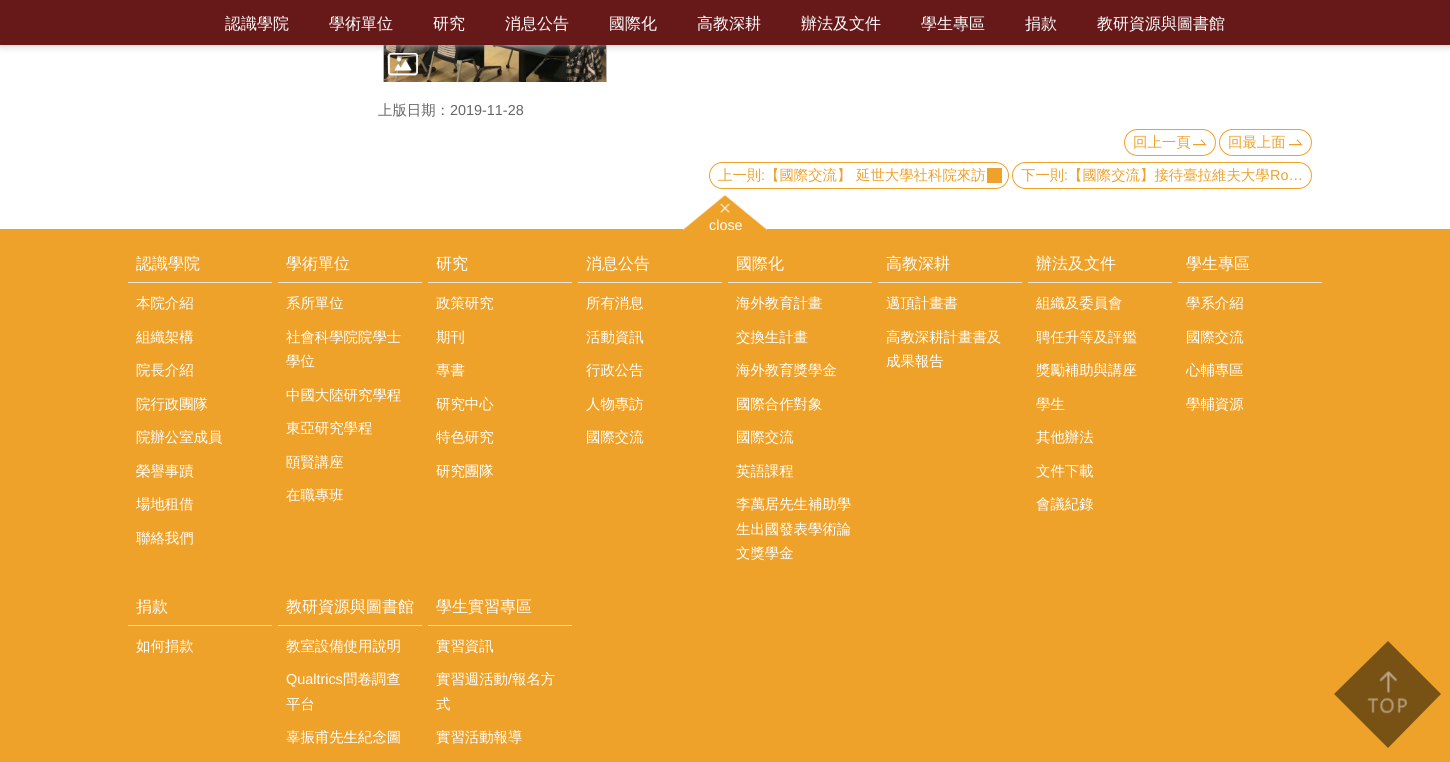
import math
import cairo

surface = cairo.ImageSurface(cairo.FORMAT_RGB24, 1450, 762)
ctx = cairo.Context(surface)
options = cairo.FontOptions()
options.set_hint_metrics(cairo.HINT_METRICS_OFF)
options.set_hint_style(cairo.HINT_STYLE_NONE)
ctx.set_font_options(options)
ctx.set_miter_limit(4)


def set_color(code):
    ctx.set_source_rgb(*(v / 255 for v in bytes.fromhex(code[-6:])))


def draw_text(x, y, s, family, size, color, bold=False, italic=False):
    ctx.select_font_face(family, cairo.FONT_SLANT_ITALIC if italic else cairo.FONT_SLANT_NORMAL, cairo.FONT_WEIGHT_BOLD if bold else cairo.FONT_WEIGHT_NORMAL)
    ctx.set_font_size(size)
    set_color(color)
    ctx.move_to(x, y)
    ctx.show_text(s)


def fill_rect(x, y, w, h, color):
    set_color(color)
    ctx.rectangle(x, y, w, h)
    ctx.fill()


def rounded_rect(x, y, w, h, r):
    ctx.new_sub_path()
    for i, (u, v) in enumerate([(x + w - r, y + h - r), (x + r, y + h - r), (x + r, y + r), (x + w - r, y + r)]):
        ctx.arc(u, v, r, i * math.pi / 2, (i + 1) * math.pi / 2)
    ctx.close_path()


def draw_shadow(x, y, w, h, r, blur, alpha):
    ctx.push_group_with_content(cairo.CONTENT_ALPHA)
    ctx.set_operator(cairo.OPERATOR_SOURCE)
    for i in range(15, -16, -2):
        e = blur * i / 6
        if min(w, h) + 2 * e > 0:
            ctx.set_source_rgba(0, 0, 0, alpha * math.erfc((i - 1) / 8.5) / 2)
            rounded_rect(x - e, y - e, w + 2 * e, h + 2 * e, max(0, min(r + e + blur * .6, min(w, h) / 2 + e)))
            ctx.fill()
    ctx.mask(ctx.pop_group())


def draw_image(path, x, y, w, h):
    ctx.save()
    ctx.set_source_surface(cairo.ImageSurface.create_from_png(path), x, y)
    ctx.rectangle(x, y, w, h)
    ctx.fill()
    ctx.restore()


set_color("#ffffff")
ctx.paint()
fill_rect(383, 45, 224, 37, "#b6b6b6")
draw_image("assets/img1.png", 384, 45, 222, 37)
draw_image("assets/img2.png", 388, 53, 30, 23)
set_color("#b6b6b6")
draw_shadow(0, 0, 1450, 45, 0, 4, 1)
fill_rect(0, 0, 1450, 45, "#671919")
draw_text(225, 29, "認識學院", "WenQuanYi Zen Hei Medium", 16, "#ffffff")
draw_text(329, 29, "學術單位", "WenQuanYi Zen Hei Medium", 16, "#ffffff")
draw_text(433, 29, "研究", "WenQuanYi Zen Hei Medium", 16, "#ffffff")
draw_text(505, 29, "消息公告", "WenQuanYi Zen Hei Medium", 16, "#ffffff")
draw_text(609, 29, "國際化", "WenQuanYi Zen Hei Medium", 16, "#ffffff")
draw_text(697, 29, "高教深耕", "WenQuanYi Zen Hei Medium", 16, "#ffffff")
draw_text(801, 29, "辦法及文件", "WenQuanYi Zen Hei Medium", 16, "#ffffff")
draw_text(921, 29, "學生專區", "WenQuanYi Zen Hei Medium", 16, "#ffffff")
draw_text(1025, 29, "捐款", "WenQuanYi Zen Hei Medium", 16, "#ffffff")
draw_text(1097, 29, "教研資源與圖書館", "WenQuanYi Zen Hei Medium", 16, "#ffffff")
draw_text(378, 115, "上版日期：", "WenQuanYi Zen Hei Medium", 14.4, "#646464")
draw_text(450, 115, "2019-11-28", "Liberation Sans", 14.4, "#646464")
rounded_rect(1124.5, 129.5, 91, 26, 13)
set_color("#efa22a")
ctx.set_line_width(1)
ctx.stroke()
draw_text(1133, 147, "回上一頁", "WenQuanYi Zen Hei Medium", 14.4, "#efa22a")
fill_rect(1193, 139, 14, 7, "#efa22a")
draw_image("assets/img3.png", 1192, 135, 15, 15)
rounded_rect(1219.5, 129.5, 92, 26, 13)
ctx.stroke()
draw_text(1228, 147, "回最上面", "WenQuanYi Zen Hei Medium", 14.4, "#efa22a")
fill_rect(1289, 139, 14, 7, "#efa22a")
draw_image("assets/img3.png", 1288, 135, 15, 15)
rounded_rect(709.5, 162.5, 299, 26, 13)
ctx.stroke()
draw_text(718, 180, "上一則", "WenQuanYi Zen Hei Medium", 14.4, "#efa22a")
draw_text(761, 180, ":", "Liberation Sans", 14.4, "#efa22a")
draw_text(765, 180, "【國際交流】", "WenQuanYi Zen Hei Medium", 14.4, "#efa22a")
draw_text(856, 180, "延世大學社科院來訪", "WenQuanYi Zen Hei Medium", 14.4, "#efa22a")
fill_rect(987, 168, 15, 15, "#efa22a")
rounded_rect(1012.5, 162.5, 299, 26, 13)
ctx.stroke()
draw_text(1021, 180, "下一則", "WenQuanYi Zen Hei Medium", 14.4, "#efa22a")
draw_text(1064, 180, ":", "Liberation Sans", 14.4, "#efa22a")
draw_text(1068, 180, "【國際交流】接待臺拉維夫大學", "WenQuanYi Zen Hei Medium", 14.4, "#efa22a")
draw_text(1270, 180, "Ro…", "Liberation Sans", 14.4, "#efa22a")
fill_rect(0, 229, 1450, 533, "#efa22a")
fill_rect(683, 195, 84, 34, "#efa22a")
draw_image("assets/img4.png", 683, 195, 84, 35)
draw_text(709, 230, "close", "Liberation Sans", 14.4, "#ffffff")
fill_rect(128, 282, 144, 1, "#e4e4e4")
draw_text(136, 269, "認識學院", "WenQuanYi Zen Hei Medium", 16, "#ffffff")
draw_text(136, 308, "本院介紹", "WenQuanYi Zen Hei Medium", 14.4, "#ffffff")
draw_text(136, 342, "組織架構", "WenQuanYi Zen Hei Medium", 14.4, "#ffffff")
draw_text(136, 375, "院長介紹", "WenQuanYi Zen Hei Medium", 14.4, "#ffffff")
draw_text(136, 409, "院行政團隊", "WenQuanYi Zen Hei Medium", 14.4, "#ffffff")
draw_text(136, 442, "院辦公室成員", "WenQuanYi Zen Hei Medium", 14.4, "#ffffff")
draw_text(136, 476, "榮譽事蹟", "WenQuanYi Zen Hei Medium", 14.4, "#ffffff")
draw_text(136, 509, "場地租借", "WenQuanYi Zen Hei Medium", 14.4, "#ffffff")
draw_text(136, 543, "聯絡我們", "WenQuanYi Zen Hei Medium", 14.4, "#ffffff")
fill_rect(278, 282, 144, 1, "#e4e4e4")
draw_text(286, 269, "學術單位", "WenQuanYi Zen Hei Medium", 16, "#ffffff")
draw_text(286, 308, "系所單位", "WenQuanYi Zen Hei Medium", 14.4, "#ffffff")
draw_text(286, 342, "社會科學院院學士", "WenQuanYi Zen Hei Medium", 14.4, "#ffffff")
draw_text(286, 366, "學位", "WenQuanYi Zen Hei Medium", 14.4, "#ffffff")
draw_text(286, 400, "中國大陸研究學程", "WenQuanYi Zen Hei Medium", 14.4, "#ffffff")
draw_text(286, 433, "東亞研究學程", "WenQuanYi Zen Hei Medium", 14.4, "#ffffff")
draw_text(286, 467, "頤賢講座", "WenQuanYi Zen Hei Medium", 14.4, "#ffffff")
draw_text(286, 500, "在職專班", "WenQuanYi Zen Hei Medium", 14.4, "#ffffff")
fill_rect(428, 282, 144, 1, "#e4e4e4")
draw_text(436, 269, "研究", "WenQuanYi Zen Hei Medium", 16, "#ffffff")
draw_text(436, 308, "政策研究", "WenQuanYi Zen Hei Medium", 14.4, "#ffffff")
draw_text(436, 342, "期刊", "WenQuanYi Zen Hei Medium", 14.4, "#ffffff")
draw_text(436, 375, "專書", "WenQuanYi Zen Hei Medium", 14.4, "#ffffff")
draw_text(436, 409, "研究中心", "WenQuanYi Zen Hei Medium", 14.4, "#ffffff")
draw_text(436, 442, "特色研究", "WenQuanYi Zen Hei Medium", 14.4, "#ffffff")
draw_text(436, 476, "研究團隊", "WenQuanYi Zen Hei Medium", 14.4, "#ffffff")
fill_rect(578, 282, 144, 1, "#e4e4e4")
draw_text(586, 269, "消息公告", "WenQuanYi Zen Hei Medium", 16, "#ffffff")
draw_text(586, 308, "所有消息", "WenQuanYi Zen Hei Medium", 14.4, "#ffffff")
draw_text(586, 342, "活動資訊", "WenQuanYi Zen Hei Medium", 14.4, "#ffffff")
draw_text(586, 375, "行政公告", "WenQuanYi Zen Hei Medium", 14.4, "#ffffff")
draw_text(586, 409, "人物專訪", "WenQuanYi Zen Hei Medium", 14.4, "#ffffff")
draw_text(586, 442, "國際交流", "WenQuanYi Zen Hei Medium", 14.4, "#ffffff")
fill_rect(728, 282, 144, 1, "#e4e4e4")
draw_text(736, 269, "國際化", "WenQuanYi Zen Hei Medium", 16, "#ffffff")
draw_text(736, 308, "海外教育計畫", "WenQuanYi Zen Hei Medium", 14.4, "#ffffff")
draw_text(736, 342, "交換生計畫", "WenQuanYi Zen Hei Medium", 14.4, "#ffffff")
draw_text(736, 375, "海外教育獎學金", "WenQuanYi Zen Hei Medium", 14.4, "#ffffff")
draw_text(736, 409, "國際合作對象", "WenQuanYi Zen Hei Medium", 14.4, "#ffffff")
draw_text(736, 442, "國際交流", "WenQuanYi Zen Hei Medium", 14.4, "#ffffff")
draw_text(736, 476, "英語課程", "WenQuanYi Zen Hei Medium", 14.4, "#ffffff")
draw_text(736, 509, "李萬居先生補助學", "WenQuanYi Zen Hei Medium", 14.4, "#ffffff")
draw_text(736, 534, "生出國發表學術論", "WenQuanYi Zen Hei Medium", 14.4, "#ffffff")
draw_text(736, 558, "文獎學金", "WenQuanYi Zen Hei Medium", 14.4, "#ffffff")
fill_rect(878, 282, 144, 1, "#e4e4e4")
draw_text(886, 269, "高教深耕", "WenQuanYi Zen Hei Medium", 16, "#ffffff")
draw_text(886, 308, "邁頂計畫書", "WenQuanYi Zen Hei Medium", 14.4, "#ffffff")
draw_text(886, 342, "高教深耕計畫書及", "WenQuanYi Zen Hei Medium", 14.4, "#ffffff")
draw_text(886, 366, "成果報告", "WenQuanYi Zen Hei Medium", 14.4, "#ffffff")
fill_rect(1028, 282, 144, 1, "#e4e4e4")
draw_text(1036, 269, "辦法及文件", "WenQuanYi Zen Hei Medium", 16, "#ffffff")
draw_text(1036, 308, "組織及委員會", "WenQuanYi Zen Hei Medium", 14.4, "#ffffff")
draw_text(1036, 342, "聘任升等及評鑑", "WenQuanYi Zen Hei Medium", 14.4, "#ffffff")
draw_text(1036, 375, "獎勵補助與講座", "WenQuanYi Zen Hei Medium", 14.4, "#ffffff")
draw_text(1036, 409, "學生", "WenQuanYi Zen Hei Medium", 14.4, "#ffffff")
draw_text(1036, 442, "其他辦法", "WenQuanYi Zen Hei Medium", 14.4, "#ffffff")
draw_text(1036, 476, "文件下載", "WenQuanYi Zen Hei Medium", 14.4, "#ffffff")
draw_text(1036, 509, "會議紀錄", "WenQuanYi Zen Hei Medium", 14.4, "#ffffff")
fill_rect(1178, 282, 144, 1, "#e4e4e4")
draw_text(1186, 269, "學生專區", "WenQuanYi Zen Hei Medium", 16, "#ffffff")
draw_text(1186, 308, "學系介紹", "WenQuanYi Zen Hei Medium", 14.4, "#ffffff")
draw_text(1186, 342, "國際交流", "WenQuanYi Zen Hei Medium", 14.4, "#ffffff")
draw_text(1186, 375, "心輔專區", "WenQuanYi Zen Hei Medium", 14.4, "#ffffff")
draw_text(1186, 409, "學輔資源", "WenQuanYi Zen Hei Medium", 14.4, "#ffffff")
fill_rect(128, 625, 144, 1, "#e4e4e4")
draw_text(136, 612, "捐款", "WenQuanYi Zen Hei Medium", 16, "#ffffff")
draw_text(136, 651, "如何捐款", "WenQuanYi Zen Hei Medium", 14.4, "#ffffff")
fill_rect(278, 625, 144, 1, "#e4e4e4")
draw_text(286, 612, "教研資源與圖書館", "WenQuanYi Zen Hei Medium", 16, "#ffffff")
draw_text(286, 651, "教室設備使用說明", "WenQuanYi Zen Hei Medium", 14.4, "#ffffff")
draw_text(286, 684, "Qualtrics", "Liberation Sans", 14.4, "#ffffff")
draw_text(343, 684, "問卷調查", "WenQuanYi Zen Hei Medium", 14.4, "#ffffff")
draw_text(286, 709, "平台", "WenQuanYi Zen Hei Medium", 14.4, "#ffffff")
draw_text(286, 742, "辜振甫先生紀念圖", "WenQuanYi Zen Hei Medium", 14.4, "#ffffff")
fill_rect(428, 625, 144, 1, "#e4e4e4")
draw_text(436, 612, "學生實習專區", "WenQuanYi Zen Hei Medium", 16, "#ffffff")
draw_text(436, 651, "實習資訊", "WenQuanYi Zen Hei Medium", 14.4, "#ffffff")
draw_text(436, 684, "實習週活動", "WenQuanYi Zen Hei Medium", 14.4, "#ffffff")
draw_text(508, 684, "/", "Liberation Sans", 14.4, "#ffffff")
draw_text(512, 684, "報名方", "WenQuanYi Zen Hei Medium", 14.4, "#ffffff")
draw_text(436, 709, "式", "WenQuanYi Zen Hei Medium", 14.4, "#ffffff")
draw_text(436, 742, "實習活動報導", "WenQuanYi Zen Hei Medium", 14.4, "#ffffff")
set_color("#785115")
ctx.new_path()
ctx.move_to(1388, 641)
ctx.line_to(1441, 694)
ctx.line_to(1388, 748)
ctx.line_to(1334, 694)
ctx.close_path()
ctx.fill()
draw_image("assets/img5.png", 1367, 671, 41, 43)
surface.write_to_png("output.png")
